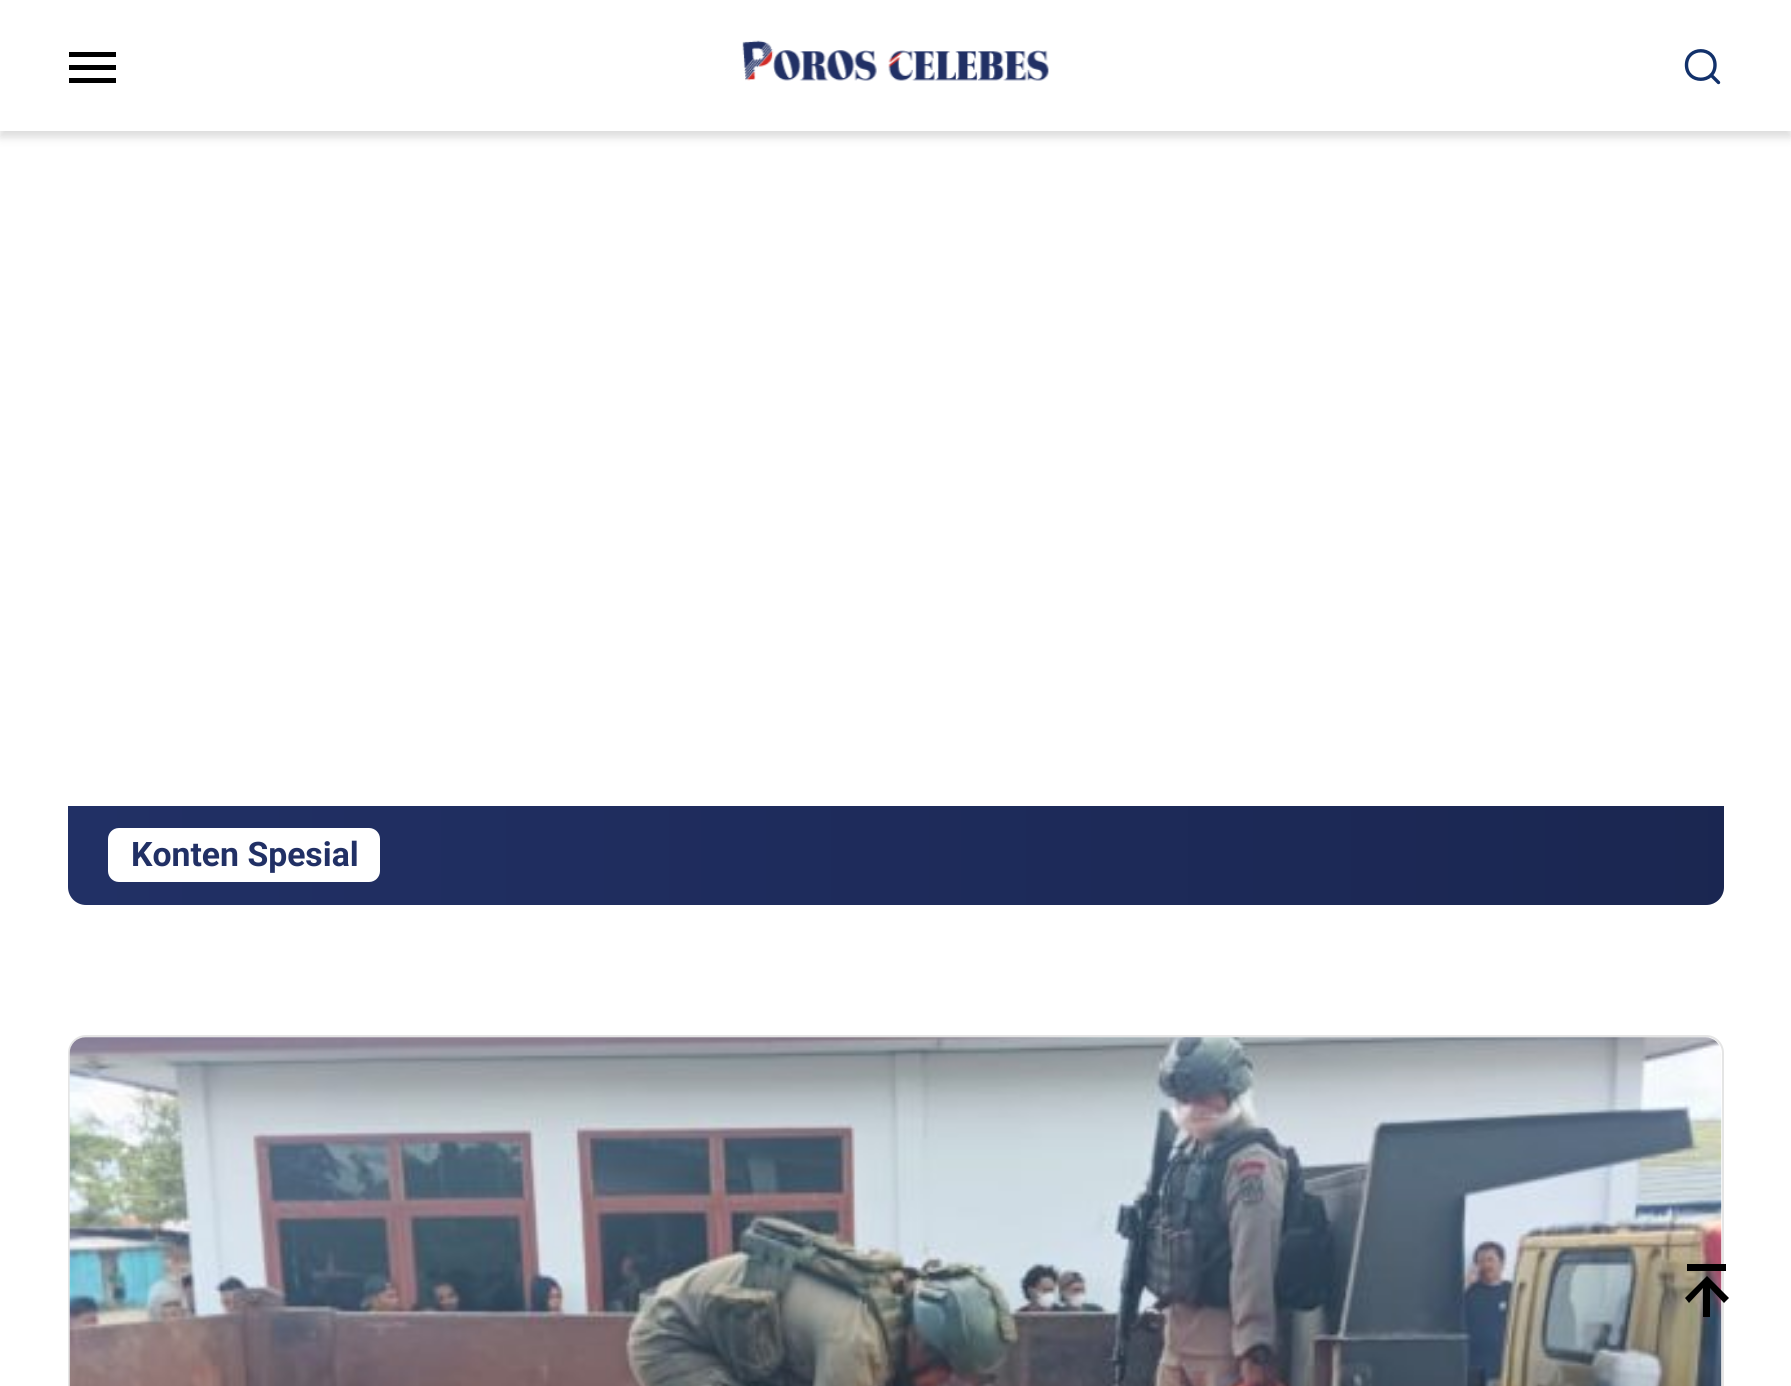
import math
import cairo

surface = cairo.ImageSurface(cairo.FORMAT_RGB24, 1791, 1386)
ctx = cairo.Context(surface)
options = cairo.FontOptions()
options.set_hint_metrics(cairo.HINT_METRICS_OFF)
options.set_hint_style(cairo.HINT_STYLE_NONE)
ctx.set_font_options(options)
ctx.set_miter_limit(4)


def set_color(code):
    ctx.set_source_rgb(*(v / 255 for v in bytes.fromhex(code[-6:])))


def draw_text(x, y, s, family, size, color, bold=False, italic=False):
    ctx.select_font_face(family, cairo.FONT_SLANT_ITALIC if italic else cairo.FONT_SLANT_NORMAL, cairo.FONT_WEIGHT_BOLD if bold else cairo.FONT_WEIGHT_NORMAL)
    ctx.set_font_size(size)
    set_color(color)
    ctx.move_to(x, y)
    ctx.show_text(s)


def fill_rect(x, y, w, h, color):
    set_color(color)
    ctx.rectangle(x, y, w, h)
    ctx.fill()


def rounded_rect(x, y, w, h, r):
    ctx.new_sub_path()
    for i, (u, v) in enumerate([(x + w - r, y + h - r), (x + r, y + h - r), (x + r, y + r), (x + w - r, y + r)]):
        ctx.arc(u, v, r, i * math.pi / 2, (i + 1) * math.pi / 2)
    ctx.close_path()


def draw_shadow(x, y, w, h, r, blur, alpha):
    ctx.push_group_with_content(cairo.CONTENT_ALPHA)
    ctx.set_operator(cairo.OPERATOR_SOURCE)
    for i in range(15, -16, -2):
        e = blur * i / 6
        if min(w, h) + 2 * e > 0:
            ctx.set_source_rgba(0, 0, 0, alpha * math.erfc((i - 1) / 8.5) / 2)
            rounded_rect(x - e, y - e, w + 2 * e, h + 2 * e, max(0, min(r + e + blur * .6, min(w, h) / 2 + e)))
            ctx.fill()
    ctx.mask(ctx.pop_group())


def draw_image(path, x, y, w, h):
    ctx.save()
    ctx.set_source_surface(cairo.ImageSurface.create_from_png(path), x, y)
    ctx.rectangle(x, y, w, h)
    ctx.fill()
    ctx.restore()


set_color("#ffffff")
ctx.paint()
set_color("#343434")
draw_shadow(0, 7, 1791, 130, 0, 4.5, 0.18)
fill_rect(0, 0, 1791, 131, "#ffffff")
set_color("#000000")
ctx.new_path()
ctx.move_to(69, 52)
ctx.line_to(116, 52)
ctx.line_to(116, 57)
ctx.line_to(69, 57)
ctx.line_to(69, 52)
ctx.move_to(69, 65)
ctx.line_to(116, 65)
ctx.line_to(116, 70)
ctx.line_to(69, 70)
ctx.line_to(69, 65)
ctx.move_to(69, 78)
ctx.line_to(116, 78)
ctx.line_to(116, 83)
ctx.line_to(69, 83)
ctx.close_path()
ctx.fill()
draw_image("assets/img1.png", 742, 40, 307, 41)
ctx.new_path()
ctx.move_to(1718.5, 82.5)
ctx.line_to(1711, 75)
ctx.move_to(1715, 65)
ctx.curve_to(1715, 84, 1686.5, 84, 1686.5, 65)
ctx.curve_to(1686.5, 46, 1715, 46, 1715, 65)
ctx.close_path()
set_color("#12316b")
ctx.set_line_width(3.4)
ctx.set_line_cap(cairo.LINE_CAP_ROUND)
ctx.stroke()
set_color("#213065")
ctx.new_path()
ctx.move_to(68, 806)
ctx.line_to(1724, 806)
ctx.line_to(1724, 887)
ctx.curve_to(1724, 897, 1716, 905, 1706, 905)
ctx.line_to(86, 905)
ctx.curve_to(76, 905, 68, 897, 68, 887)
ctx.close_path()
ctx.fill()
gradient = cairo.LinearGradient(68, 855, 1724, 855)
gradient.add_color_stop_rgba(0, 0, 0, 0, 0)
gradient.add_color_stop_rgba(1, 0, 0, 0, 0.2)
ctx.set_source(gradient)
ctx.new_path()
ctx.move_to(68, 806)
ctx.line_to(1724, 806)
ctx.line_to(1724, 887)
ctx.curve_to(1724, 897, 1716, 905, 1706, 905)
ctx.line_to(86, 905)
ctx.curve_to(76, 905, 68, 897, 68, 887)
ctx.close_path()
ctx.fill()
set_color("#ffffff")
rounded_rect(108, 828, 272, 54, 11)
ctx.fill()
draw_text(131, 866, "Konten Spesial", "Roboto", 33.75, "#213065", bold=True)
rounded_rect(69, 1036, 1654, 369, 17)
set_color("#e5e5e5")
ctx.set_line_width(2)
ctx.set_line_cap(cairo.LINE_CAP_BUTT)
ctx.stroke()
draw_image("assets/img2.png", 69, 1037, 1653, 349)
set_color("#000000")
ctx.new_path()
ctx.move_to(1687, 1264)
ctx.line_to(1726, 1264)
ctx.line_to(1726, 1271)
ctx.line_to(1687, 1271)
ctx.close_path()
ctx.move_to(1689, 1303)
ctx.line_to(1703, 1288)
ctx.line_to(1703, 1317)
ctx.line_to(1710, 1317)
ctx.line_to(1710, 1288)
ctx.line_to(1724, 1303)
ctx.line_to(1729, 1298)
ctx.line_to(1707, 1276)
ctx.line_to(1685, 1298)
ctx.close_path()
ctx.fill()
surface.write_to_png("output.png")
